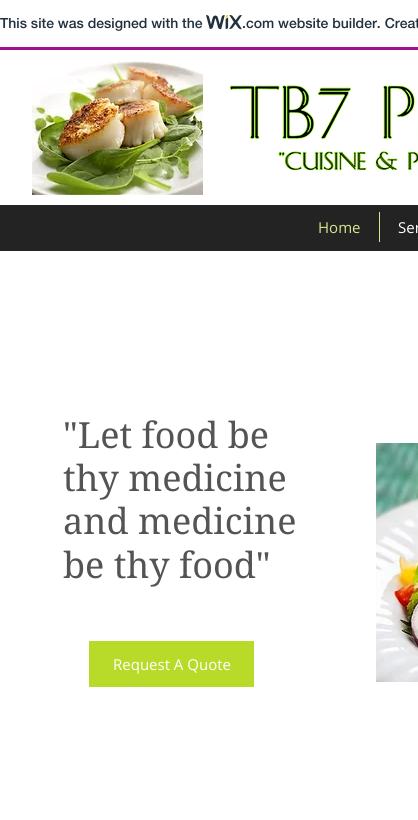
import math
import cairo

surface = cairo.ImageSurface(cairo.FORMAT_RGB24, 418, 820)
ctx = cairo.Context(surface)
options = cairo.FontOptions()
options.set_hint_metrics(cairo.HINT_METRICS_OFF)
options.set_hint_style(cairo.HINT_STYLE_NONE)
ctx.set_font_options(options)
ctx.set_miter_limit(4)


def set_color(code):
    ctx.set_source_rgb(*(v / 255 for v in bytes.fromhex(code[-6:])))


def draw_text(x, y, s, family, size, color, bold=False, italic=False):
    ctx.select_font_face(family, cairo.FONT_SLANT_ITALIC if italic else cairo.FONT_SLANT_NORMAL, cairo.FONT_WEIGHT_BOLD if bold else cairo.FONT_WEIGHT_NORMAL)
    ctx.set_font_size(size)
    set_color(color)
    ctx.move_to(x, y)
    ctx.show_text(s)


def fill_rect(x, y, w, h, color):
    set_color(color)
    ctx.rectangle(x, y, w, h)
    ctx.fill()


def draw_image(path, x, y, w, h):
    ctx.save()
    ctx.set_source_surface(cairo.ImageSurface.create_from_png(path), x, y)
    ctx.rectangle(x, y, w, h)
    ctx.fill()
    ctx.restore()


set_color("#ffffff")
ctx.paint()
fill_rect(0, 47, 418, 3, "#a0138e")
draw_text(0, 28, "This site was designed with the", "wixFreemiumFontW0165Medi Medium", 14, "#20303c")
draw_image("assets/img1.png", 206, 15, 36, 15)
draw_text(242, 28, ".com website builder. Creat", "wixFreemiumFontW0165Medi Medium", 14, "#20303c")
draw_image("assets/img2.png", 32, 61, 171, 134)
draw_image("assets/img3.png", 229, 85, 189, 86)
fill_rect(0, 205, 418, 46, "#242323")
draw_text(318, 233, "Home", "Open Sans", 15, "#d5e78a")
fill_rect(379, 212, 1, 30, "#d5e78a")
draw_text(398, 233, "Ser", "Open Sans", 15, "#ffffff")
draw_text(63, 448, "\"Let food be", "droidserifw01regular", 36, "#555353")
draw_text(63, 491, "thy medicine", "droidserifw01regular", 36, "#555353")
draw_text(63, 534, "and medicine", "droidserifw01regular", 36, "#555353")
draw_text(63, 578, "be thy food\"", "droidserifw01regular", 36, "#555353")
fill_rect(89, 641, 165, 46, "#b8db2a")
draw_text(113, 670, "Request A Quote", "Open Sans", 15, "#ffffff")
draw_image("assets/img4.png", 376, 443, 42, 239)
surface.write_to_png("output.png")
